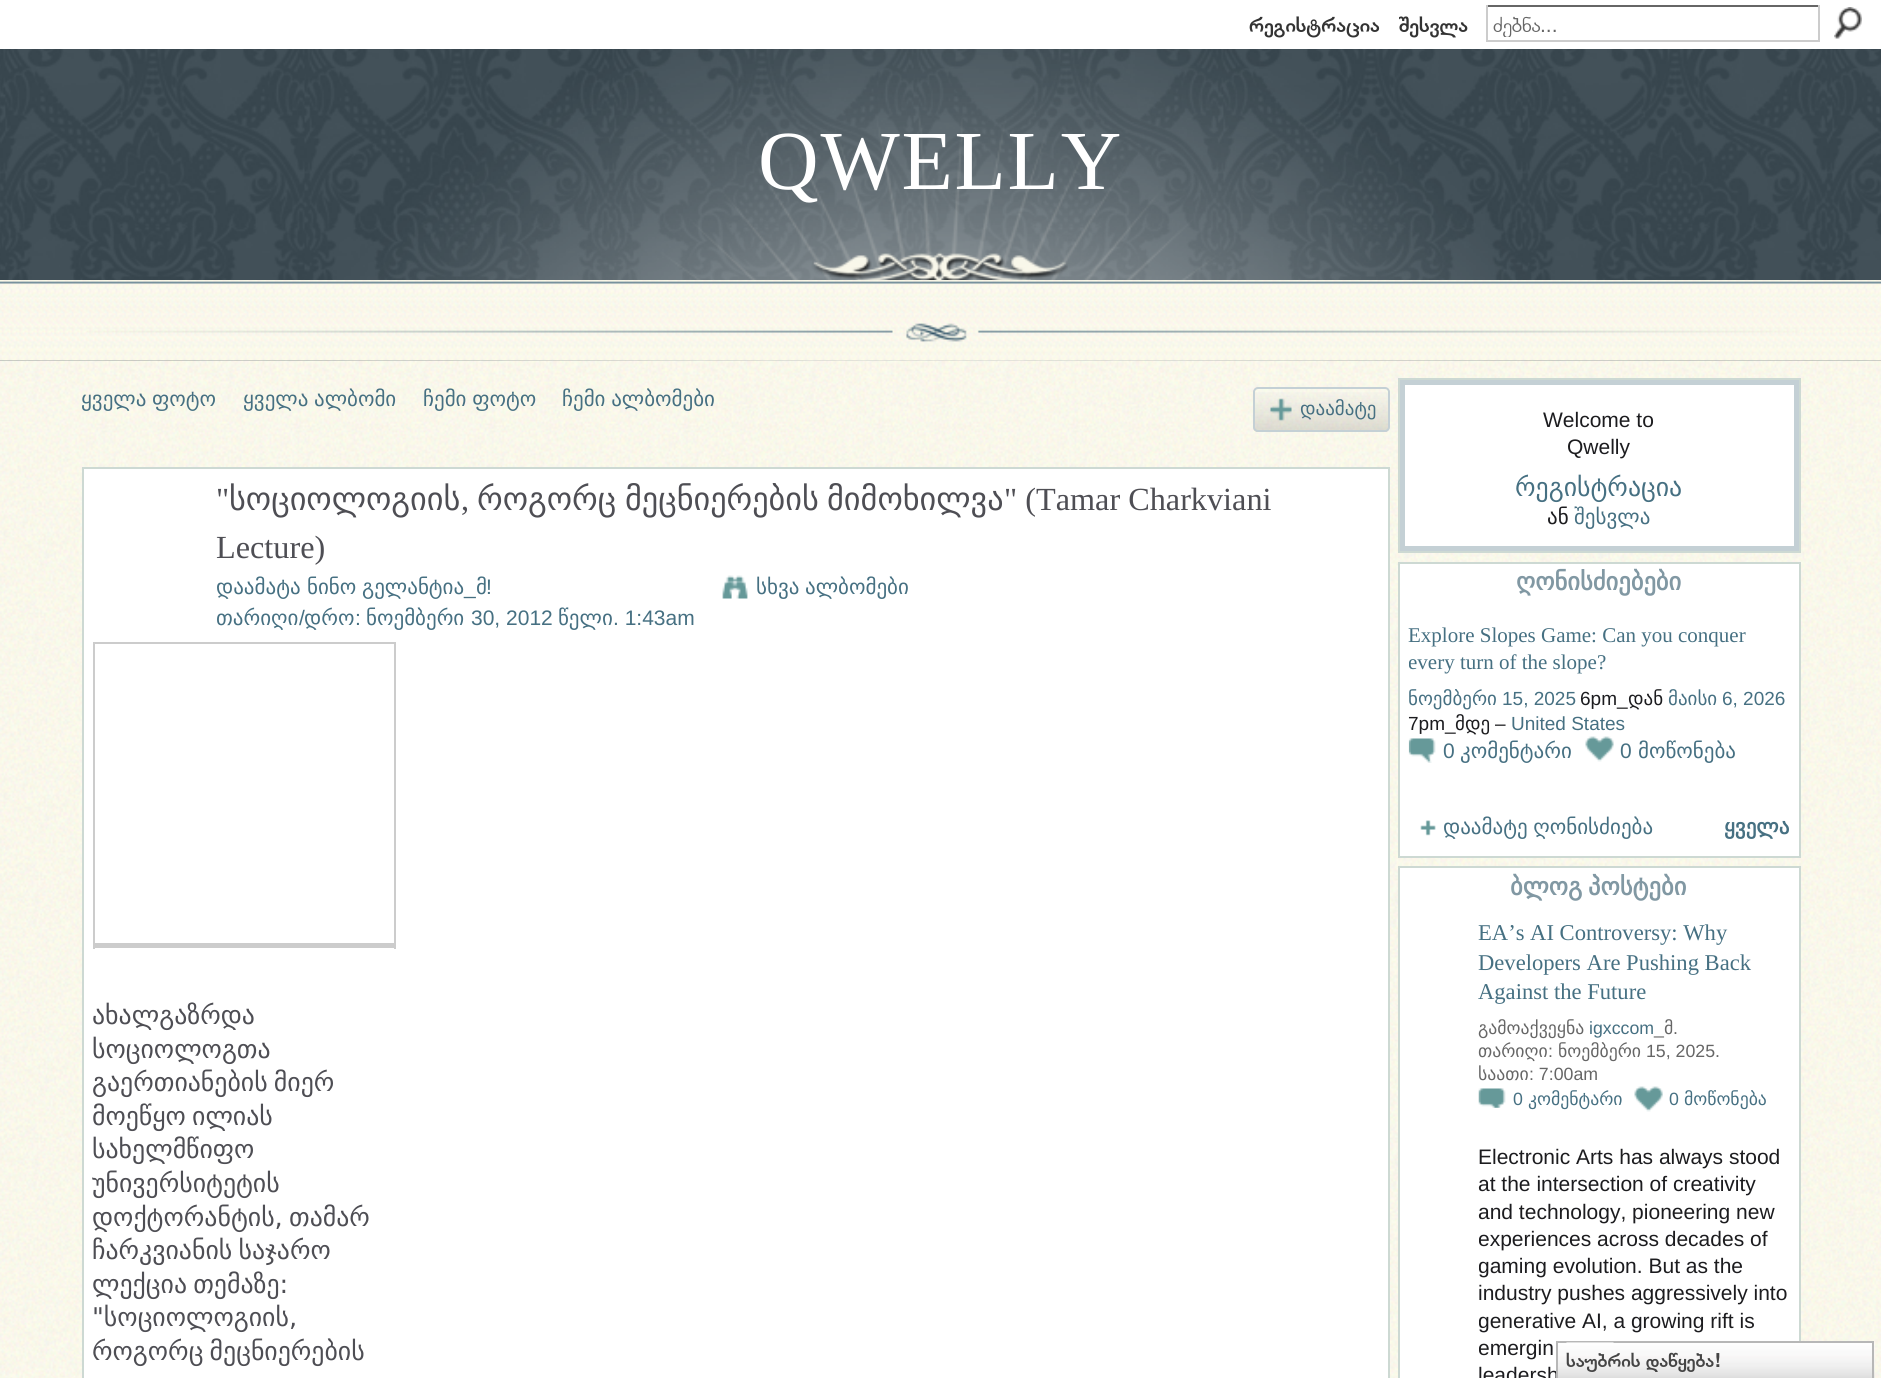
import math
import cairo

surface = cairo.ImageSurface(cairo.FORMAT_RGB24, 1881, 1378)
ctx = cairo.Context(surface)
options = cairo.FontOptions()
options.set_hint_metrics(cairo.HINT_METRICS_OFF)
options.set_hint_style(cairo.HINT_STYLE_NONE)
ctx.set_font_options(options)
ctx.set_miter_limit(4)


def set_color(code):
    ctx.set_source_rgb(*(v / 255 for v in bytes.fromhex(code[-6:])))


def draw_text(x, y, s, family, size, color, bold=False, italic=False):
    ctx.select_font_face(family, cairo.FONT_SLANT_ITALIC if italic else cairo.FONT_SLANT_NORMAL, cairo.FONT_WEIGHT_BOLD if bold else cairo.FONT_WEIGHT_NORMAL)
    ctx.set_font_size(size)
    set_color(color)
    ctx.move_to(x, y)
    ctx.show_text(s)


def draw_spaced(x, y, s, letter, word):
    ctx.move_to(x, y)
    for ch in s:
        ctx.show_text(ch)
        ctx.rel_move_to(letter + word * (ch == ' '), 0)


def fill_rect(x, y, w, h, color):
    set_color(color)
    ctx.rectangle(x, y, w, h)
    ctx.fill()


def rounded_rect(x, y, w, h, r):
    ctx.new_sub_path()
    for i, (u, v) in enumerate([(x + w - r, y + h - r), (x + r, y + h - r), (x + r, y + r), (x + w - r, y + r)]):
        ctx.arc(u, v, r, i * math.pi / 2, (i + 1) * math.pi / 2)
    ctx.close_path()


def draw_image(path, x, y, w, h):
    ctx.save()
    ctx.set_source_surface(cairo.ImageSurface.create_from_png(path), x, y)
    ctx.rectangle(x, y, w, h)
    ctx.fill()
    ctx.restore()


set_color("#42525c")
ctx.paint()
draw_image("assets/img1.png", 0, 49, 1881, 312)
fill_rect(0, 0, 1881, 49, "#ffffff")
draw_text(1249, 32, "რეგისტრაცია", "FreeSans SemiBold", 21, "#333333")
draw_text(1399, 32, "შესვლა", "FreeSans SemiBold", 21, "#333333")
fill_rect(1486, 5, 334, 2, "#666666")
fill_rect(1818, 5, 2, 37, "#cccccc")
fill_rect(1486, 40, 334, 2, "#cccccc")
fill_rect(1486, 5, 2, 37, "#cccccc")
ctx.save()
ctx.rectangle(1493, 12, 320, 25)
ctx.clip()
draw_text(1493, 32, "ძებნა", "FreeSans", 21, "#666666")
ctx.restore()
draw_text(1540, 32, "...", "Liberation Sans", 21, "#666666")
draw_image("assets/img2.png", 1834, 7, 28, 32)
draw_image("assets/img3.png", 323, 49, 1237, 312)
draw_image("assets/img4.png", 813, 252, 255, 28)
ctx.select_font_face("Liberation Serif")
ctx.set_font_size(84)
set_color("#ffffff")
draw_spaced(758, 189, "QWELLY", 1.75, 0)
draw_image("assets/img5.png", 0, 280, 1881, 81)
draw_image("assets/img6.png", 87, 323, 1713, 19)
draw_image("assets/img7.png", 0, 360, 1881, 1018)
ctx.select_font_face("DejaVu Sans")
ctx.set_font_size(21)
set_color("#467082")
draw_spaced(81, 406, "ყველა ფოტო", 0, -1)
draw_spaced(243, 406, "ყველა ალბომი", 0, -1)
draw_spaced(423, 406, "ჩემი ფოტო", 0, -1)
draw_spaced(562, 406, "ჩემი ალბომები", 0, -1)
draw_image("assets/img8.png", 1253, 392, 137, 40)
rounded_rect(1254, 388, 135, 43, 4)
set_color("#c4d0d5")
ctx.stroke()
draw_image("assets/img9.png", 1270, 398, 22, 23)
draw_text(1300, 415, "დაამატე", "DejaVu Sans", 19, "#467082")
set_color("#ffffff")
ctx.rectangle(83, 468, 1306, 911)
ctx.fill_preserve()
set_color("#cdd9d3")
ctx.stroke()
draw_text(216, 510, "\"", "Liberation Serif", 32.25, "#4e4e54")
draw_text(229, 510, "სოციოლოგიის", "DejaVu Sans", 32.25, "#4e4e54")
draw_text(477, 510, "როგორც", "DejaVu Sans", 32.25, "#4e4e54")
draw_text(625, 510, "მეცნიერების", "DejaVu Sans", 32.25, "#4e4e54")
draw_text(827, 510, "მიმოხილვა", "DejaVu Sans", 32.25, "#4e4e54")
draw_text(1004, 510, "\" (Tamar Charkviani", "Liberation Serif", 32.25, "#4e4e54")
draw_text(461, 510, ",", "Liberation Serif", 32.25, "#4e4e54")
draw_text(216, 558, "Lecture)", "Liberation Serif", 32.25, "#4e4e54")
draw_text(216, 594, "დაამატა", "DejaVu Sans", 21, "#467082")
draw_spaced(307, 594, "ნინო გელანტია", 0, -1)
draw_text(476, 594, "მ", "DejaVu Sans", 21, "#467082")
draw_text(486, 594, "!", "Liberation Sans", 21, "#467082")
draw_text(464, 594, "_", "Liberation Sans", 21, "#467082")
draw_text(216, 625, "თარიღი", "DejaVu Sans", 21, "#467082")
draw_text(299, 625, "/", "Liberation Sans", 21, "#467082")
draw_text(304, 625, "დრო", "DejaVu Sans", 21, "#467082")
draw_text(355, 625, ":", "Liberation Sans", 21, "#467082")
draw_text(366, 625, "ნოემბერი", "DejaVu Sans", 21, "#467082")
draw_text(471, 625, "30, 2012", "Liberation Sans", 21, "#467082")
draw_text(558, 625, "წელი", "DejaVu Sans", 21, "#467082")
draw_text(613, 625, ". 1:43am", "Liberation Sans", 21, "#467082")
draw_image("assets/img10.png", 722, 575, 26, 24)
ctx.select_font_face("DejaVu Sans")
draw_spaced(756, 594, "სხვა ალბომები", 0, -1)
fill_rect(93, 642, 303, 2, "#cccccc")
fill_rect(394, 642, 2, 307, "#cccccc")
fill_rect(93, 943, 303, 5, "#cccccc")
fill_rect(93, 642, 2, 307, "#cccccc")
draw_text(92, 1024, "ახალგაზრდა", "DejaVu Sans", 25.8, "#4e4e54")
draw_text(92, 1058, "სოციოლოგთა", "DejaVu Sans", 25.8, "#4e4e54")
draw_spaced(92, 1091, "გაერთიანების მიერ", 0, -2)
draw_spaced(92, 1125, "მოეწყო ილიას", 0, -2)
draw_text(92, 1158, "სახელმწიფო", "DejaVu Sans", 25.8, "#4e4e54")
draw_text(92, 1192, "უნივერსიტეტის", "DejaVu Sans", 25.8, "#4e4e54")
draw_spaced(92, 1226, "დოქტორანტის, თამარ", 0, -2)
draw_spaced(92, 1259, "ჩარკვიანის საჯარო", 0, -2)
draw_spaced(92, 1293, "ლექცია თემაზე:", 0, -2)
draw_text(92, 1326, "\"სოციოლოგიის,", "DejaVu Sans", 25.8, "#4e4e54")
draw_spaced(92, 1360, "როგორც მეცნიერების", 0, -2)
fill_rect(1405, 385, 389, 161, "#ffffff")
ctx.rectangle(1399, 379, 401, 173)
set_color("#cdd9d3")
ctx.stroke()
ctx.rectangle(1402.5, 382.5, 394, 166)
set_color("#c4d0d5")
ctx.set_line_width(5)
ctx.stroke()
draw_text(1543, 427, "Welcome to", "Liberation Sans", 21, "#1c1c1f")
draw_text(1567, 454, "Qwelly", "Liberation Sans", 21, "#1c1c1f")
draw_text(1515, 496, "რეგისტრაცია", "DejaVu Sans", 25.8, "#467082")
draw_text(1547, 524, "ან", "DejaVu Sans", 21, "#1c1c1f")
draw_text(1574, 524, "შესვლა", "DejaVu Sans", 21, "#467082")
set_color("#ffffff")
ctx.rectangle(1399, 563, 401, 294)
ctx.fill_preserve()
set_color("#cdd9d3")
ctx.set_line_width(2)
ctx.stroke()
draw_text(1516, 590, "ღონისძიებები", "DejaVu Sans", 24.5, "#8198a3", bold=True)
draw_text(1408, 642, "Explore Slopes Game: Can you conquer", "Liberation Serif", 21, "#467082")
ctx.save()
ctx.rectangle(1409, 623, 381, 147)
ctx.clip()
draw_text(1408, 669, "every turn of the slope?", "Liberation Serif", 21, "#467082")
ctx.restore()
draw_text(1408, 705, "ნოემბერი", "DejaVu Sans", 19, "#467082")
draw_text(1502, 705, "15, 2025", "Liberation Sans", 19, "#467082")
draw_text(1580, 705, "6pm_", "Liberation Sans", 19, "#1c1c1f")
draw_text(1628, 705, "დან", "DejaVu Sans", 19, "#1c1c1f")
draw_text(1668, 705, "მაისი", "DejaVu Sans", 19, "#467082")
draw_text(1722, 705, "6, 2026", "Liberation Sans", 19, "#467082")
draw_text(1408, 730, "7pm_", "Liberation Sans", 19, "#1c1c1f")
draw_text(1455, 730, "მდე", "DejaVu Sans", 19, "#1c1c1f")
draw_text(1495, 730, "–", "Liberation Sans", 19, "#1c1c1f")
draw_text(1511, 730, "United States", "Liberation Sans", 19, "#467082")
draw_image("assets/img11.png", 1408, 738, 28, 25)
draw_text(1443, 758, "0", "Liberation Sans", 21, "#467082")
draw_text(1460, 758, "კომენტარი", "DejaVu Sans", 21, "#467082")
draw_image("assets/img12.png", 1585, 736, 29, 26)
draw_text(1620, 758, "0", "Liberation Sans", 21, "#467082")
draw_text(1638, 758, "მოწონება", "DejaVu Sans", 21, "#467082")
draw_image("assets/img13.png", 1420, 820, 16, 16)
draw_spaced(1443, 834, "დაამატე ღონისძიება", 0, -1)
draw_text(1724, 834, "ყველა", "DejaVu Sans", 21, "#467082", bold=True)
set_color("#ffffff")
ctx.rectangle(1399, 867, 401, 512)
ctx.fill_preserve()
set_color("#cdd9d3")
ctx.stroke()
ctx.set_font_size(24.5)
set_color("#8198a3")
draw_spaced(1510, 895, "ბლოგ პოსტები", 0, -2)
draw_text(1478, 940, "EA’s AI Controversy: Why", "Liberation Serif", 22.6, "#467082")
draw_text(1478, 970, "Developers Are Pushing Back", "Liberation Serif", 22.6, "#467082")
draw_text(1478, 999, "Against the Future", "Liberation Serif", 22.6, "#467082")
draw_text(1478, 1034, "გამოაქვეყნა", "DejaVu Sans", 17.75, "#666666")
draw_text(1589, 1034, "igxccom", "Liberation Sans", 17.75, "#467082")
draw_text(1664, 1034, "მ", "DejaVu Sans", 17.75, "#666666")
draw_text(1673, 1034, ".", "Liberation Sans", 17.75, "#666666")
draw_text(1654, 1034, "_", "Liberation Sans", 17.75, "#666666")
draw_text(1478, 1057, "თარიღი", "DejaVu Sans", 17.75, "#666666")
draw_text(1548, 1057, ":", "Liberation Sans", 17.75, "#666666")
draw_text(1558, 1057, "ნოემბერი", "DejaVu Sans", 17.75, "#666666")
draw_text(1646, 1057, "15, 2025.", "Liberation Sans", 17.75, "#666666")
draw_text(1478, 1080, "საათი", "DejaVu Sans", 17.75, "#666666")
draw_text(1529, 1080, ": 7:00am", "Liberation Sans", 17.75, "#666666")
draw_image("assets/img14.png", 1478, 1088, 28, 20)
draw_text(1513, 1105, "0", "Liberation Sans", 17.75, "#467082")
draw_text(1528, 1105, "კომენტარი", "DejaVu Sans", 17.75, "#467082")
draw_image("assets/img15.png", 1634, 1086, 29, 26)
draw_text(1669, 1105, "0", "Liberation Sans", 17.75, "#467082")
draw_text(1684, 1105, "მოწონება", "DejaVu Sans", 17.75, "#467082")
draw_text(1478, 1164, "Electronic Arts has always stood", "Liberation Sans", 21, "#1c1c1f")
draw_text(1478, 1191, "at the intersection of creativity", "Liberation Sans", 21, "#1c1c1f")
draw_text(1478, 1219, "and technology, pioneering new", "Liberation Sans", 21, "#1c1c1f")
ctx.save()
ctx.rectangle(1479, 1136, 311, 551)
ctx.clip()
draw_text(1478, 1246, "experiences across decades of", "Liberation Sans", 21, "#1c1c1f")
draw_text(1478, 1273, "gaming evolution. But as the", "Liberation Sans", 21, "#1c1c1f")
ctx.restore()
draw_text(1478, 1300, "industry pushes aggressively into", "Liberation Sans", 21, "#1c1c1f")
ctx.save()
ctx.rectangle(1479, 1136, 311, 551)
ctx.clip()
draw_text(1478, 1328, "generative AI, a growing rift is", "Liberation Sans", 21, "#1c1c1f")
draw_text(1478, 1355, "emergin", "Liberation Sans", 21, "#1c1c1f")
ctx.restore()
draw_text(1478, 1382, "leadersh", "Liberation Sans", 21, "#1c1c1f")
draw_image("assets/img16.png", 1558, 1341, 317, 37)
ctx.rectangle(1557, 1342, 316, 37)
set_color("#b7b7b7")
ctx.stroke()
draw_image("assets/img17.png", 1566, 1342, 48, 1)
draw_text(1566, 1367, "საუბრის დაწყება!", "FreeSans SemiBold", 19.25, "#454545")
surface.write_to_png("output.png")
